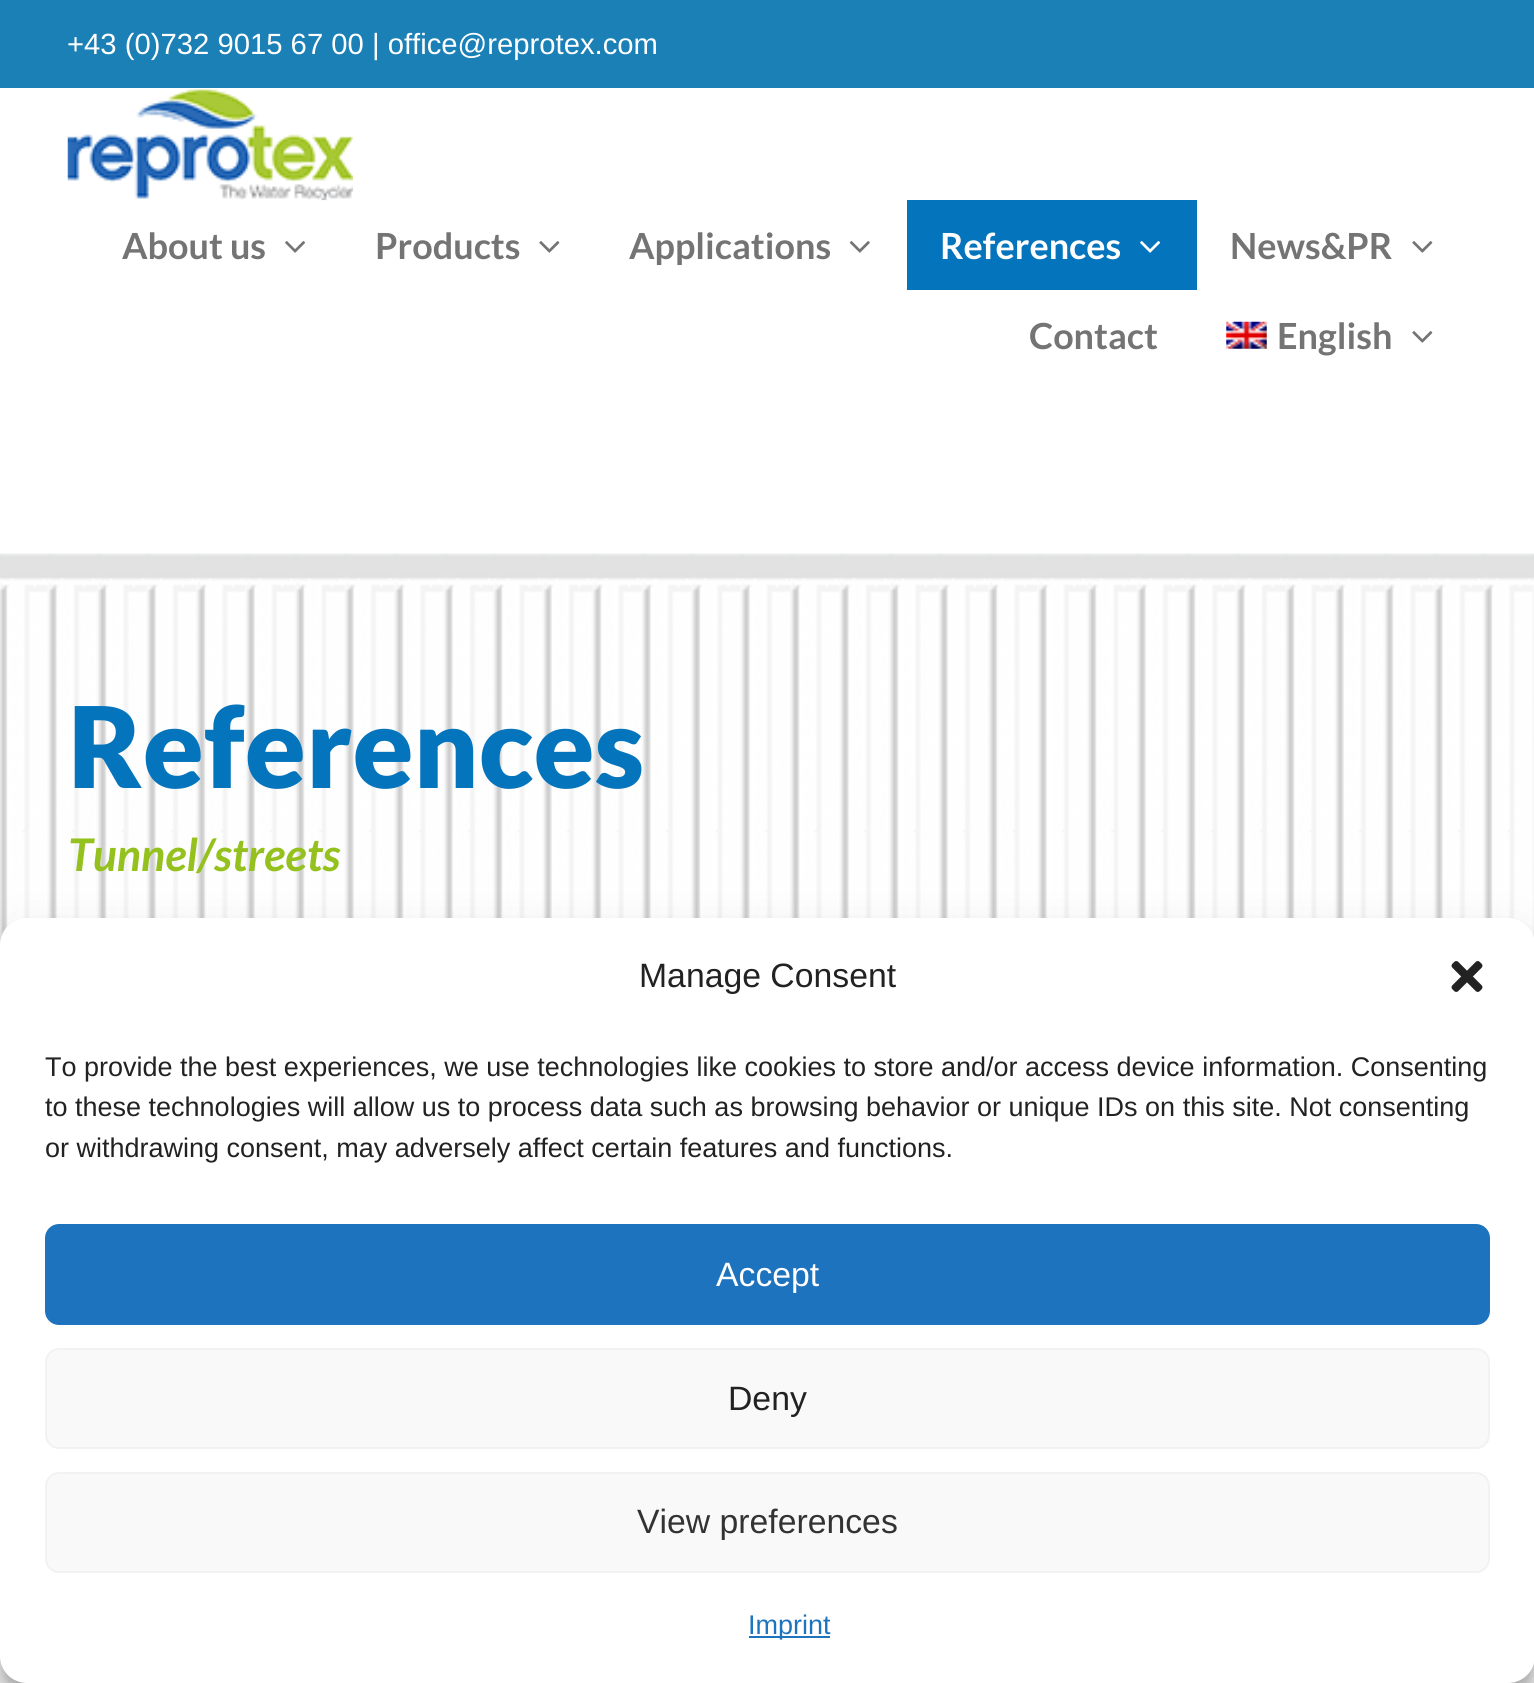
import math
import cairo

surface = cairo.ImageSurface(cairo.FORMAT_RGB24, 1534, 1683)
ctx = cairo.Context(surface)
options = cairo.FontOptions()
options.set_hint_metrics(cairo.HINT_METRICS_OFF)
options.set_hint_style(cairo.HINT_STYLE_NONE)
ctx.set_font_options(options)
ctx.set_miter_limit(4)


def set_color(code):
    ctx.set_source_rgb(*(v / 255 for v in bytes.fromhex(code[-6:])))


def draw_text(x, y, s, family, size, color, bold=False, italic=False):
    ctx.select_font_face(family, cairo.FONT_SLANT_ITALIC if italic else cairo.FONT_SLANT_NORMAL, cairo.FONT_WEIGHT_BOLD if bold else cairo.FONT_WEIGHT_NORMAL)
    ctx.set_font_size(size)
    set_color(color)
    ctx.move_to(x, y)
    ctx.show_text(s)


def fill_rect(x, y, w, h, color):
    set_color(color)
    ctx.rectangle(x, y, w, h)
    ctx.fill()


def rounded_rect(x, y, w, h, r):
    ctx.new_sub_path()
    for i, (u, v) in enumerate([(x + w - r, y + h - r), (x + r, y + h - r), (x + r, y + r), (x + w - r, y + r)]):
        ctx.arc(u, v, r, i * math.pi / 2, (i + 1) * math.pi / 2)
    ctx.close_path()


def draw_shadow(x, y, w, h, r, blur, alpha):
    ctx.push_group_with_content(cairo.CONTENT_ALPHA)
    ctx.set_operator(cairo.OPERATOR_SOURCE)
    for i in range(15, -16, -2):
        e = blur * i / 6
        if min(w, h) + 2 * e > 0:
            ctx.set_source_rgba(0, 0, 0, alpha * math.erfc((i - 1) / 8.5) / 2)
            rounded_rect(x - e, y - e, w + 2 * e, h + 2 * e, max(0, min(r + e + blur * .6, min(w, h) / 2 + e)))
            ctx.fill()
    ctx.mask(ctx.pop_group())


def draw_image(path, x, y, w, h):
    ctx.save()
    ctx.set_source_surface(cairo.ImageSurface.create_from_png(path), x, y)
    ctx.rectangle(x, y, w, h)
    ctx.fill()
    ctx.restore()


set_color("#ffffff")
ctx.paint()
fill_rect(0, 0, 1534, 88, "#1a80b6")
draw_text(67, 54, "+43 (0)732 9015 67 00 | office@reprotex.com", "Liberation Sans", 29.25, "#ffffff")
draw_image("assets/img1.png", 67, 89, 287, 112)
draw_text(122, 259, "About us", "Lato", 36, "#747474", bold=True)
draw_image("assets/img2.png", 285, 241, 20, 12)
draw_text(375, 259, "Products", "Lato", 36, "#747474", bold=True)
draw_image("assets/img3.png", 539, 241, 21, 12)
draw_text(629, 259, "Applications", "Lato", 36, "#747474", bold=True)
draw_image("assets/img4.png", 849, 241, 21, 12)
fill_rect(907, 200, 290, 90, "#0474bc")
draw_text(940, 259, "References", "Lato", 36, "#ffffff", bold=True)
draw_image("assets/img5.png", 1140, 241, 20, 12)
draw_text(1230, 259, "News&PR", "Lato", 36, "#747474", bold=True)
draw_image("assets/img3.png", 1412, 241, 21, 12)
draw_text(1029, 349, "Contact", "Lato", 36, "#747474", bold=True)
draw_image("assets/img6.png", 1226, 321, 41, 28)
draw_text(1277, 349, "English", "Lato", 36, "#747474", bold=True)
draw_image("assets/img3.png", 1412, 331, 21, 12)
draw_image("assets/img7.png", 0, 553, 1534, 392)
draw_text(68, 788, "References", "Lato Black", 112.5, "#0474bc")
draw_text(68, 871, "Tunnel/streets", "Lato", 45, "#94c11d", bold=True, italic=True)
set_color("#000000")
draw_shadow(0, 932, 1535, 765, 27, 7, 0.23)
draw_shadow(0, 941, 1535, 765, 27, 22.5, 0.19)
set_color("#ffffff")
rounded_rect(0, 918, 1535, 765, 27)
ctx.fill()
draw_text(639, 987, "Manage Consent", "Liberation Sans", 33.75, "#222222")
draw_image("assets/img8.png", 1451, 961, 32, 31)
draw_text(45, 1076, "To provide the best experiences, we use technologies like cookies to store and/or access device information. Consenting", "Liberation Sans", 27, "#222222")
draw_text(45, 1116, "to these technologies will allow us to process data such as browsing behavior or unique IDs on this site. Not consenting", "Liberation Sans", 27, "#222222")
draw_text(45, 1157, "or withdrawing consent, may adversely affect certain features and functions.", "Liberation Sans", 27, "#222222")
set_color("#1e73be")
rounded_rect(46, 1225, 1443, 99, 13)
ctx.fill_preserve()
ctx.stroke()
draw_text(716, 1286, "Accept", "Liberation Sans", 33.75, "#ffffff")
set_color("#f9f9f9")
rounded_rect(46, 1349, 1443, 99, 13)
ctx.fill_preserve()
set_color("#f2f2f2")
ctx.stroke()
draw_text(728, 1410, "Deny", "Liberation Sans", 33.75, "#222222")
set_color("#f9f9f9")
rounded_rect(46, 1473, 1443, 99, 13)
ctx.fill_preserve()
set_color("#f2f2f2")
ctx.stroke()
draw_text(637, 1533, "View preferences", "Liberation Sans", 33.75, "#333333")
fill_rect(749, 1636, 81, 2, "#1e73be")
draw_text(748, 1634, "Imprint", "Liberation Sans", 27, "#1e73be")
surface.write_to_png("output.png")
